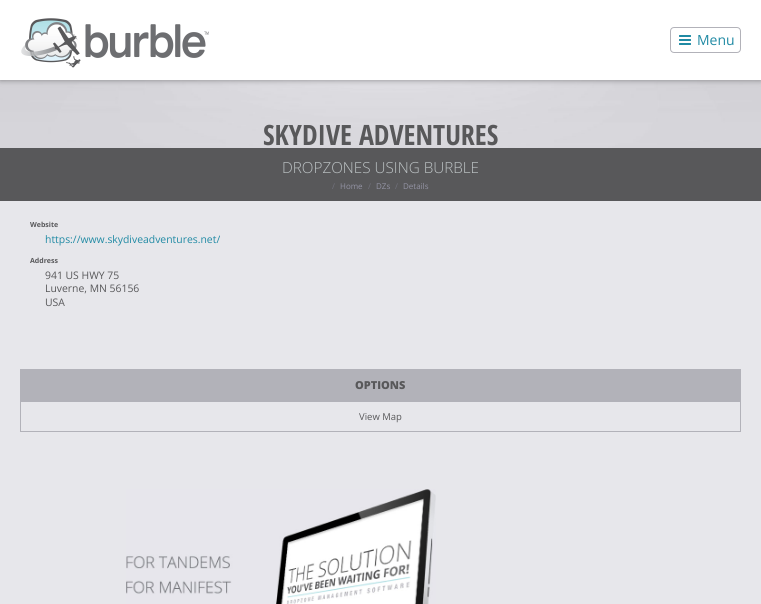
import math
import cairo

surface = cairo.ImageSurface(cairo.FORMAT_RGB24, 761, 604)
ctx = cairo.Context(surface)
options = cairo.FontOptions()
options.set_hint_metrics(cairo.HINT_METRICS_OFF)
options.set_hint_style(cairo.HINT_STYLE_NONE)
ctx.set_font_options(options)
ctx.set_miter_limit(4)


def set_color(code):
    ctx.set_source_rgb(*(v / 255 for v in bytes.fromhex(code[-6:])))


def draw_text(x, y, s, family, size, color, bold=False, italic=False):
    ctx.select_font_face(family, cairo.FONT_SLANT_ITALIC if italic else cairo.FONT_SLANT_NORMAL, cairo.FONT_WEIGHT_BOLD if bold else cairo.FONT_WEIGHT_NORMAL)
    ctx.set_font_size(size)
    set_color(color)
    ctx.move_to(x, y)
    ctx.show_text(s)


def fill_rect(x, y, w, h, color):
    set_color(color)
    ctx.rectangle(x, y, w, h)
    ctx.fill()


def rounded_rect(x, y, w, h, r):
    ctx.new_sub_path()
    for i, (u, v) in enumerate([(x + w - r, y + h - r), (x + r, y + h - r), (x + r, y + r), (x + w - r, y + r)]):
        ctx.arc(u, v, r, i * math.pi / 2, (i + 1) * math.pi / 2)
    ctx.close_path()


def draw_shadow(x, y, w, h, r, blur, alpha):
    ctx.push_group_with_content(cairo.CONTENT_ALPHA)
    ctx.set_operator(cairo.OPERATOR_SOURCE)
    for i in range(15, -16, -2):
        e = blur * i / 6
        if min(w, h) + 2 * e > 0:
            ctx.set_source_rgba(0, 0, 0, alpha * math.erfc((i - 1) / 8.5) / 2)
            rounded_rect(x - e, y - e, w + 2 * e, h + 2 * e, max(0, min(r + e + blur * .6, min(w, h) / 2 + e)))
            ctx.fill()
    ctx.mask(ctx.pop_group())


def draw_image(path, x, y, w, h):
    ctx.save()
    ctx.set_source_surface(cairo.ImageSurface.create_from_png(path), x, y)
    ctx.rectangle(x, y, w, h)
    ctx.fill()
    ctx.restore()


set_color("#58585a")
ctx.paint()
draw_image("assets/img3.png", 0, 80, 761, 68)
set_color("#000000")
draw_shadow(0, 0, 761, 80, 0, 3, 0.4)
fill_rect(0, 0, 761, 80, "#ffffff")
draw_image("assets/img1.png", 21, 18, 188, 50)
rounded_rect(670.5, 27.5, 70, 25, 3.5)
set_color("#b2b2b9")
ctx.set_line_width(1)
ctx.stroke()
draw_image("assets/img2.png", 679, 35, 12, 10)
draw_text(697, 45, "Menu", "Open Sans", 14, "#208aa4")
draw_text(263, 145, "SKYDIVE ADVENTURES", "Open Sans Condensed", 28, "#58585a", bold=True)
draw_text(282, 173, "DROPZONES USING BURBLE", "Open Sans Light", 15.25, "#bdc3c5")
draw_text(332, 189, "/", "Open Sans", 8, "#73737e")
draw_text(340, 189, "Home", "Open Sans", 8, "#9393a4")
draw_text(368, 189, "/", "Open Sans", 8, "#73737e")
draw_text(376, 189, "DZs", "Open Sans", 8, "#9393a4")
draw_text(395, 189, "/", "Open Sans", 8, "#73737e")
draw_text(403, 189, "Details", "Open Sans", 8, "#9393a4")
fill_rect(0, 201, 761, 403, "#e7e7eb")
draw_text(30, 227, "Website", "Open Sans", 7, "#58585a", bold=True)
draw_text(45, 243, "https://www.skydiveadventures.net/", "Open Sans", 10.4, "#208aa4")
draw_text(30, 263, "Address", "Open Sans", 7, "#58585a", bold=True)
draw_text(45, 279, "941 US HWY 75", "Open Sans", 10.4, "#58585a")
draw_text(45, 292, "Luverne, MN 56156", "Open Sans", 10.4, "#58585a")
draw_text(45, 306, "USA", "Open Sans", 10.4, "#58585a")
fill_rect(20, 369, 721, 32, "#b2b2b9")
draw_text(355, 389, "OPTIONS", "Open Sans ExtraBold", 11, "#58585a")
ctx.rectangle(20.5, 401.5, 720, 30)
set_color("#b2b2b9")
ctx.stroke()
draw_text(359, 420, "View Map", "Open Sans", 9.5, "#58585a")
draw_image("assets/img4.png", 126, 489, 310, 115)
surface.write_to_png("output.png")
